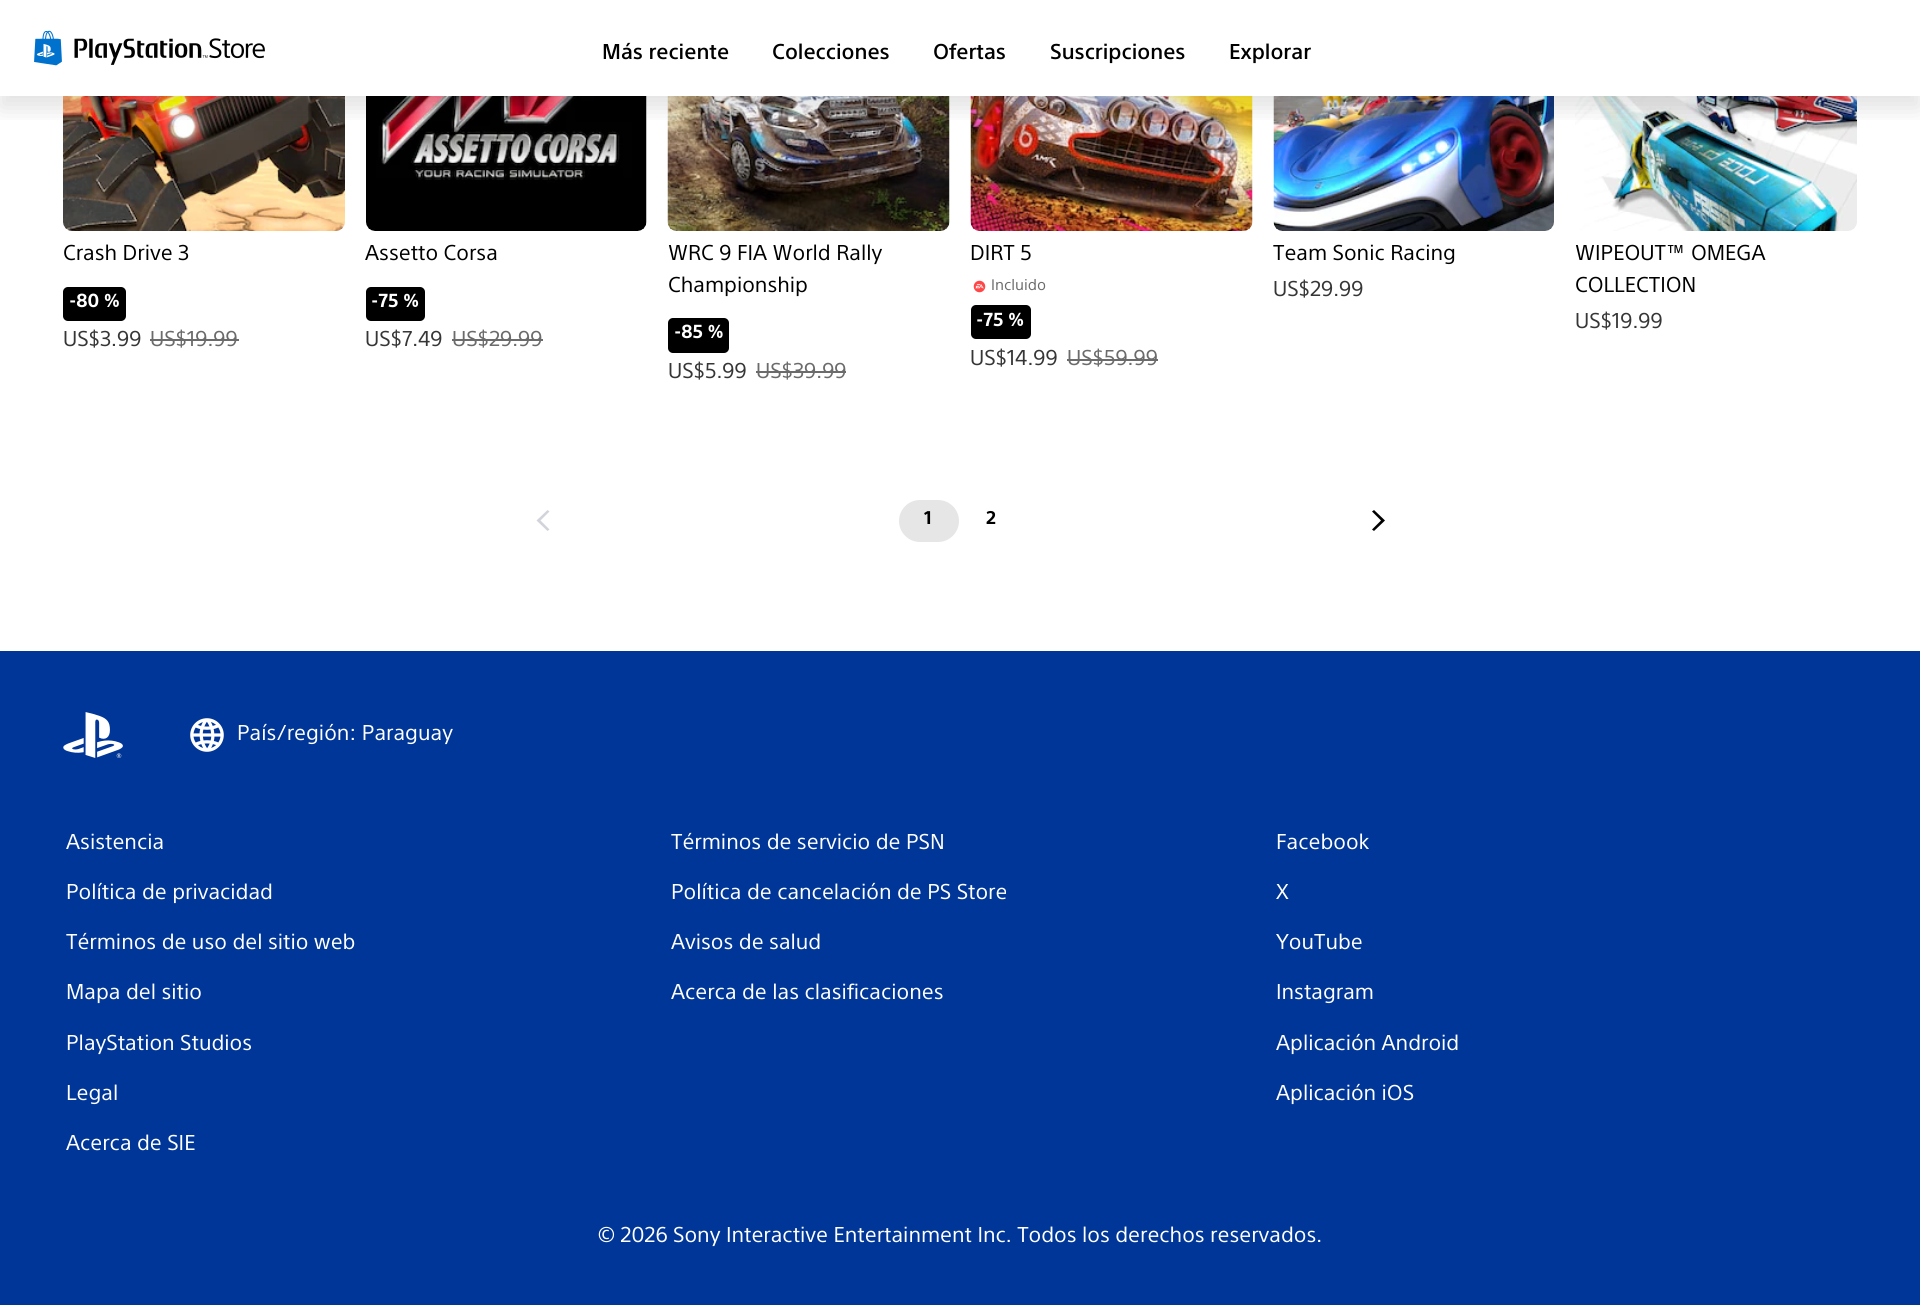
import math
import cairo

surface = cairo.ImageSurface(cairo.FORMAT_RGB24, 1920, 1305)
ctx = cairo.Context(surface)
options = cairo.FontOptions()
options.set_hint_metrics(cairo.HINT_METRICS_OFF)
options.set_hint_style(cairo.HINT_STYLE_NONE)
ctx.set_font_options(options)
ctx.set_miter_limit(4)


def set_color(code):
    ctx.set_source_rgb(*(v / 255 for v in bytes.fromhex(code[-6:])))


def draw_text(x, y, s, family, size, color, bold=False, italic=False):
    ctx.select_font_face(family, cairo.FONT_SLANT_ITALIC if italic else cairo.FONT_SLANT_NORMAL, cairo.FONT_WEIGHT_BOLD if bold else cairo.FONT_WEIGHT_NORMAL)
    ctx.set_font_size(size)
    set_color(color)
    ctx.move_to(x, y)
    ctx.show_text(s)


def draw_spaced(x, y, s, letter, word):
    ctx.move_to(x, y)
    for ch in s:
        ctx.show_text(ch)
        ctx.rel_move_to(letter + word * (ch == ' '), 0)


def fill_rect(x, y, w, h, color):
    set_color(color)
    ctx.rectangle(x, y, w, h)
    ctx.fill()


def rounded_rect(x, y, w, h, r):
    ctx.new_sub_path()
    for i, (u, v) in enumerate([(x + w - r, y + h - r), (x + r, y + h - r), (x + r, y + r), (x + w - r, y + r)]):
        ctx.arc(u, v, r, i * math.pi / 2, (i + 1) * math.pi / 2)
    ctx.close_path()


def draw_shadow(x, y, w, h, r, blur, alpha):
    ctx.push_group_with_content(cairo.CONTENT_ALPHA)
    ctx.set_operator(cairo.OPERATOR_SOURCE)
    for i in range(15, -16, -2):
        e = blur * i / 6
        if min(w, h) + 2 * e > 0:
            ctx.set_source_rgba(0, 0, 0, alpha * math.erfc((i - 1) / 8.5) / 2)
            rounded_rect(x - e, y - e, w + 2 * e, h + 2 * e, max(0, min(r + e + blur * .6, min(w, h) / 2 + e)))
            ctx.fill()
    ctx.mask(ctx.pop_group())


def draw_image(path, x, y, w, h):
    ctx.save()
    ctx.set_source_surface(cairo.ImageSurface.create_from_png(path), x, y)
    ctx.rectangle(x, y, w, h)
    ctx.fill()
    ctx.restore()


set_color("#ffffff")
ctx.paint()
draw_image("assets/img3.png", 63, 96, 282, 135)
draw_image("assets/img4.png", 366, 96, 281, 135)
draw_image("assets/img5.png", 667, 96, 283, 135)
draw_image("assets/img6.png", 970, 96, 283, 135)
draw_image("assets/img8.png", 1273, 96, 281, 135)
draw_image("assets/img9.png", 1575, 96, 282, 135)
ctx.save()
ctx.rectangle(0, 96, 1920, 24)
ctx.clip()
set_color("#000000")
draw_shadow(0, 12, 1920, 96, 0, 12, 0.12)
ctx.restore()
draw_image("assets/img1.png", 34, 30, 28, 36)
draw_image("assets/img2.png", 74, 38, 191, 27)
draw_text(602, 59, "Más reciente", "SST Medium", 21, "#000000")
draw_text(772, 59, "Colecciones", "SST Medium", 21, "#000000")
draw_text(933, 59, "Ofertas", "SST Medium", 21, "#000000")
draw_text(1050, 59, "Suscripciones", "SST Medium", 21, "#000000")
draw_text(1229, 59, "Explorar", "SST Medium", 21, "#000000")
draw_text(63, 260, "Crash Drive 3", "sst", 21, "#000000")
rounded_rect(63, 287, 63, 34, 5)
ctx.fill()
draw_text(69, 307, "-80 %", "sst", 18.5, "#ffffff", bold=True)
draw_text(63, 346, "US$3.99", "sst", 21, "#363636")
draw_text(150, 346, "US$19.99", "sst", 21, "#6b6b6b")
fill_rect(150, 339, 89, 2, "#6b6b6b")
draw_text(365, 260, "Assetto Corsa", "sst", 21, "#000000")
rounded_rect(366, 287, 59, 34, 5)
ctx.fill()
draw_text(371, 307, "-75 %", "sst", 18.5, "#ffffff", bold=True)
draw_text(365, 346, "US$7.49", "sst", 21, "#363636")
draw_text(452, 346, "US$29.99", "sst", 21, "#6b6b6b")
fill_rect(452, 339, 91, 2, "#6b6b6b")
draw_text(668, 260, "WRC 9 FIA World Rally", "sst", 21, "#000000")
draw_text(668, 292, "Championship", "sst", 21, "#000000")
rounded_rect(668, 318, 61, 35, 5)
ctx.fill()
draw_text(674, 338, "-85 %", "sst", 18.5, "#ffffff", bold=True)
draw_text(668, 378, "US$5.99", "sst", 21, "#363636")
draw_text(756, 378, "US$39.99", "sst", 21, "#6b6b6b")
fill_rect(756, 371, 90, 2, "#6b6b6b")
draw_text(970, 260, "DIRT 5", "sst", 21, "#000000")
draw_image("assets/img7.png", 973, 280, 13, 13)
draw_text(991, 290, "Incluido", "sst", 15, "#6b6b6b")
set_color("#000000")
rounded_rect(971, 305, 60, 34, 5)
ctx.fill()
draw_text(976, 326, "-75 %", "sst", 18.5, "#ffffff", bold=True)
draw_text(970, 365, "US$14.99", "sst", 21, "#363636")
draw_text(1067, 365, "US$59.99", "sst", 21, "#6b6b6b")
fill_rect(1067, 359, 91, 2, "#6b6b6b")
draw_text(1273, 260, "Team Sonic Racing", "sst", 21, "#000000")
draw_text(1273, 296, "US$29.99", "sst", 21, "#363636")
draw_text(1575, 260, "WIPEOUT™ OMEGA", "sst", 21, "#000000")
draw_text(1575, 292, "COLLECTION", "sst", 21, "#000000")
draw_text(1575, 328, "US$19.99", "sst", 21, "#363636")
set_color("#d2d4d9")
ctx.set_fill_rule(cairo.FILL_RULE_EVEN_ODD)
ctx.new_path()
ctx.move_to(547.5, 510)
ctx.line_to(549.5, 511.5)
ctx.line_to(540.5, 520.5)
ctx.line_to(549.5, 529.5)
ctx.line_to(547.5, 531)
ctx.line_to(536.5, 520.5)
ctx.close_path()
ctx.fill()
set_color("#e6e6e6")
rounded_rect(899, 500, 60, 42, 21)
ctx.fill()
ctx.select_font_face("sst", cairo.FONT_SLANT_NORMAL, cairo.FONT_WEIGHT_BOLD)
ctx.set_font_size(18)
set_color("#000000")
draw_spaced(924, 524, "1", 1, 0)
draw_spaced(986, 524, "2", 1, 0)
ctx.new_path()
ctx.move_to(1374, 531)
ctx.line_to(1372, 529.5)
ctx.line_to(1381, 520.5)
ctx.line_to(1372, 511.5)
ctx.line_to(1374, 510)
ctx.line_to(1385, 520.5)
ctx.close_path()
ctx.fill()
fill_rect(0, 651, 1920, 654, "#003697")
draw_image("assets/img10.png", 63, 712, 60, 46)
draw_image("assets/img11.png", 190, 718, 34, 34)
draw_text(237, 740, "País/región: Paraguay", "sst", 21, "#ffffff")
draw_text(66, 849, "Asistencia", "sst", 21, "#ffffff")
draw_text(66, 899, "Política de privacidad", "sst", 21, "#ffffff")
draw_text(66, 949, "Términos de uso del sitio web", "sst", 21, "#ffffff")
draw_text(66, 999, "Mapa del sitio", "sst", 21, "#ffffff")
draw_text(66, 1050, "PlayStation Studios", "sst", 21, "#ffffff")
draw_text(66, 1100, "Legal", "sst", 21, "#ffffff")
draw_text(66, 1150, "Acerca de SIE", "sst", 21, "#ffffff")
draw_text(671, 849, "Términos de servicio de PSN", "sst", 21, "#ffffff")
draw_text(671, 899, "Política de cancelación de PS Store", "sst", 21, "#ffffff")
draw_text(671, 949, "Avisos de salud", "sst", 21, "#ffffff")
draw_text(671, 999, "Acerca de las clasificaciones", "sst", 21, "#ffffff")
draw_text(1276, 849, "Facebook", "sst", 21, "#ffffff")
draw_text(1276, 899, "X", "sst", 21, "#ffffff")
draw_text(1276, 949, "YouTube", "sst", 21, "#ffffff")
draw_text(1276, 999, "Instagram", "sst", 21, "#ffffff")
draw_text(1276, 1050, "Aplicación Android", "sst", 21, "#ffffff")
draw_text(1276, 1100, "Aplicación iOS", "sst", 21, "#ffffff")
draw_text(598, 1242, "© 2026 Sony Interactive Entertainment Inc. Todos los derechos reservados.", "sst", 21, "#ffffff")
surface.write_to_png("output.png")
